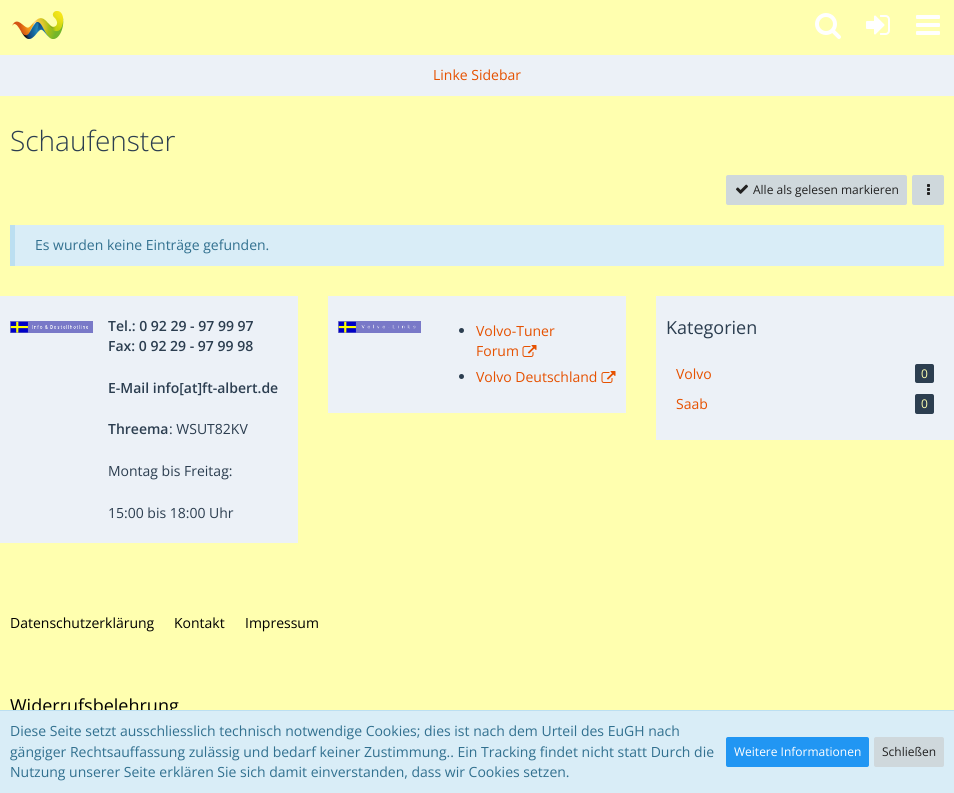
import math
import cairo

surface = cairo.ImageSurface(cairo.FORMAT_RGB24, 954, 793)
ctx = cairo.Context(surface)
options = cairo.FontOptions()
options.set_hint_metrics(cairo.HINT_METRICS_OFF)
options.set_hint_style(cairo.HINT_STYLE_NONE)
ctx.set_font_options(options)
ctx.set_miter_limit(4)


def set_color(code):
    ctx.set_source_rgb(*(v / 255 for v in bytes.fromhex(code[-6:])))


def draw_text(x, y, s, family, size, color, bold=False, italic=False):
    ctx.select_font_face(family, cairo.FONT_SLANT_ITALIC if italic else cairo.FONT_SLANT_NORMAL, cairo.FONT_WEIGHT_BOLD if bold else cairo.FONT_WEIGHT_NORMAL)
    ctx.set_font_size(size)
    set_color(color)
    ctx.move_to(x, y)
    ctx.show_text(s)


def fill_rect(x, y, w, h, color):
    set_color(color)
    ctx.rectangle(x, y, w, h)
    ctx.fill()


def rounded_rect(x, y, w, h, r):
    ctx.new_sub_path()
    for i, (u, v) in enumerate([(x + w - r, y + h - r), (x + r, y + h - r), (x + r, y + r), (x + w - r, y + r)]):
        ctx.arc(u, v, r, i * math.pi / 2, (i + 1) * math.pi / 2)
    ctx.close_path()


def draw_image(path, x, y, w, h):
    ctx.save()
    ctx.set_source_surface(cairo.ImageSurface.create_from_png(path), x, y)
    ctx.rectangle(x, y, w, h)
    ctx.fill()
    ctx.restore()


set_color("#ffffaf")
ctx.paint()
draw_image("assets/img1.png", 12, 11, 52, 28)
draw_image("assets/img2.png", 815, 13, 26, 26)
draw_image("assets/img3.png", 866, 15, 24, 20)
draw_image("assets/img4.png", 916, 15, 24, 20)
fill_rect(0, 55, 954, 41, "#ecf1f7")
draw_text(433, 80, "Linke Sidebar", "Open Sans", 14, "#e65100")
draw_text(10, 151, "Schaufenster", "Open Sans Light", 28, "#2c3e50")
set_color("#cfd8dc")
rounded_rect(726, 175, 181, 30, 2)
ctx.fill()
draw_image("assets/img5.png", 736, 184, 12, 10)
draw_text(753, 194, "Alle als gelesen markieren", "Open Sans", 12, "#212121")
set_color("#cfd8dc")
rounded_rect(912, 175, 32, 30, 2)
ctx.fill()
draw_image("assets/img6.png", 927, 184, 3, 11)
fill_rect(15, 225, 929, 41, "#d9edf7")
fill_rect(10, 225, 5, 41, "#bcdff1")
draw_text(35, 250, "Es wurden keine Einträge gefunden.", "Open Sans", 14, "#31708f")
fill_rect(0, 296, 298, 247, "#ecf1f7")
draw_image("assets/img7.png", 10, 321, 83, 12)
draw_text(108, 331, "Tel.: 0 92 29 - 97 99 97", "Open Sans SemiBold", 14, "#2c3e50")
draw_text(108, 351, "Fax: 0 92 29 - 97 99 98", "Open Sans SemiBold", 14, "#2c3e50")
draw_text(108, 393, "E-Mail info[at]ft-albert.de", "Open Sans SemiBold", 14, "#2c3e50")
draw_text(108, 434, "Threema", "Open Sans SemiBold", 14, "#2c3e50")
draw_text(169, 434, ": WSUT82KV", "Open Sans", 14, "#2c3e50")
draw_text(108, 476, "Montag bis Freitag:", "Open Sans", 14, "#2c3e50")
draw_text(108, 518, "15:00 bis 18:00 Uhr", "Open Sans", 14, "#2c3e50")
fill_rect(328, 296, 298, 117, "#ecf1f7")
draw_image("assets/img8.png", 338, 321, 83, 12)
set_color("#2c3e50")
ctx.arc(461.5, 330.5, 2.5, 0, 2 * math.pi)
ctx.fill()
draw_text(476, 336, "Volvo-Tuner", "Open Sans", 14, "#e65100")
draw_text(476, 356, "Forum", "Open Sans", 14, "#e65100")
draw_image("assets/img9.png", 522, 345, 15, 12)
set_color("#2c3e50")
ctx.arc(461.5, 376.5, 2.5, 0, 2 * math.pi)
ctx.fill()
draw_text(476, 382, "Volvo Deutschland", "Open Sans", 14, "#e65100")
draw_image("assets/img9.png", 601, 371, 15, 12)
fill_rect(656, 296, 298, 144, "#ecf1f7")
draw_text(666, 334, "Kategorien", "Open Sans", 18, "#2c3e50")
draw_text(676, 379, "Volvo", "Open Sans", 14, "#e65100")
set_color("#2c3e50")
rounded_rect(915, 364, 19, 19, 2)
ctx.fill()
draw_text(921, 378, "0", "Open Sans", 12, "#ffffaf")
draw_text(676, 409, "Saab", "Open Sans", 14, "#e65100")
set_color("#2c3e50")
rounded_rect(915, 394, 19, 20, 2)
ctx.fill()
draw_text(921, 408, "0", "Open Sans", 12, "#ffffaf")
draw_text(10, 628, "Datenschutzerklärung", "Open Sans", 14, "#000000")
draw_text(174, 628, "Kontakt", "Open Sans", 14, "#000000")
draw_text(245, 628, "Impressum", "Open Sans", 14, "#000000")
draw_text(10, 712, "Widerrufsbelehrung", "Open Sans", 18, "#000000")
fill_rect(0, 711, 954, 82, "#d9edf7")
fill_rect(0, 710, 954, 1, "#bcdff1")
draw_text(10, 736, "Diese Seite setzt ausschliesslich technisch notwendige Cookies; dies ist nach dem Urteil des EuGH nach", "Open Sans", 14, "#31708f")
draw_text(10, 757, "gängiger Rechtsauffassung zulässig und bedarf keiner Zustimmung.. Ein Tracking findet nicht statt Durch die", "Open Sans", 14, "#31708f")
draw_text(10, 777, "Nutzung unserer Seite erklären Sie sich damit einverstanden, dass wir Cookies setzen.", "Open Sans", 14, "#31708f")
set_color("#2196f3")
rounded_rect(726, 737, 143, 30, 2)
ctx.fill()
draw_text(734, 756, "Weitere Informationen", "Open Sans", 12, "#ffffff")
set_color("#cfd8dc")
rounded_rect(874, 737, 70, 30, 2)
ctx.fill()
draw_text(882, 756, "Schließen", "Open Sans", 12, "#212121")
surface.write_to_png("output.png")
